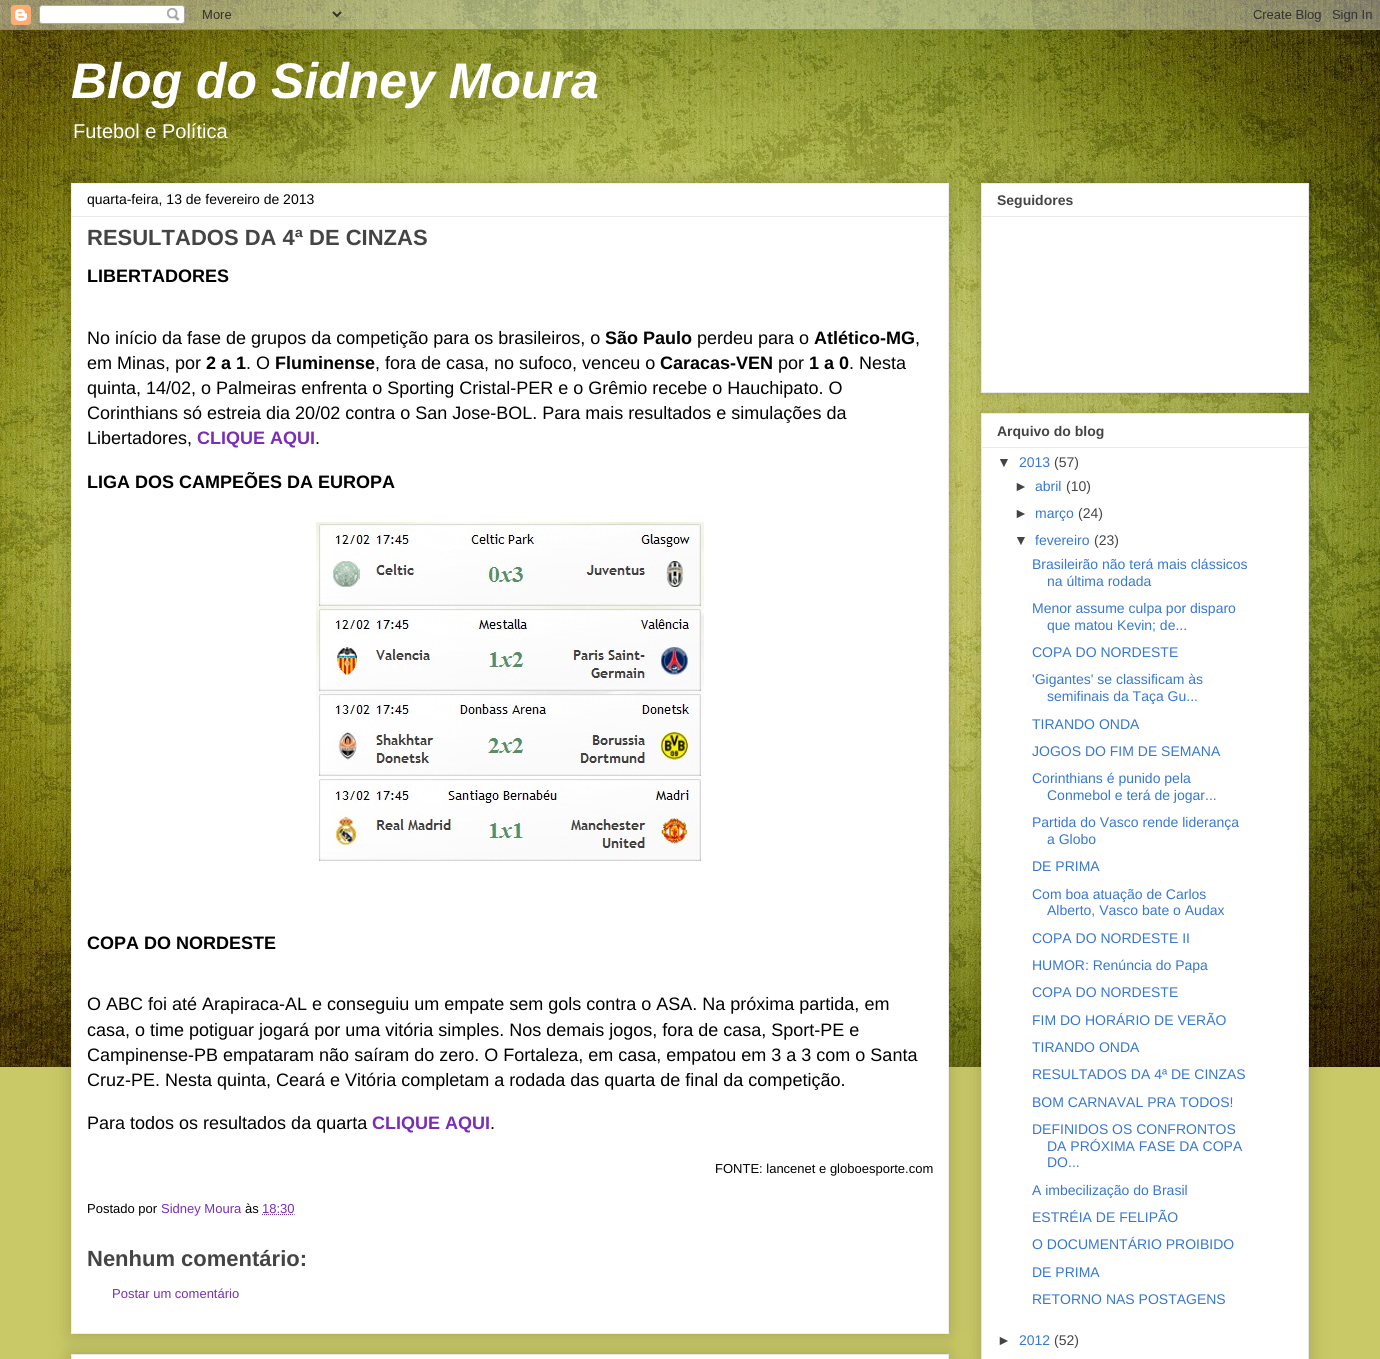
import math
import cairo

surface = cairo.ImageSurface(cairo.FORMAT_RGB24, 1380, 1359)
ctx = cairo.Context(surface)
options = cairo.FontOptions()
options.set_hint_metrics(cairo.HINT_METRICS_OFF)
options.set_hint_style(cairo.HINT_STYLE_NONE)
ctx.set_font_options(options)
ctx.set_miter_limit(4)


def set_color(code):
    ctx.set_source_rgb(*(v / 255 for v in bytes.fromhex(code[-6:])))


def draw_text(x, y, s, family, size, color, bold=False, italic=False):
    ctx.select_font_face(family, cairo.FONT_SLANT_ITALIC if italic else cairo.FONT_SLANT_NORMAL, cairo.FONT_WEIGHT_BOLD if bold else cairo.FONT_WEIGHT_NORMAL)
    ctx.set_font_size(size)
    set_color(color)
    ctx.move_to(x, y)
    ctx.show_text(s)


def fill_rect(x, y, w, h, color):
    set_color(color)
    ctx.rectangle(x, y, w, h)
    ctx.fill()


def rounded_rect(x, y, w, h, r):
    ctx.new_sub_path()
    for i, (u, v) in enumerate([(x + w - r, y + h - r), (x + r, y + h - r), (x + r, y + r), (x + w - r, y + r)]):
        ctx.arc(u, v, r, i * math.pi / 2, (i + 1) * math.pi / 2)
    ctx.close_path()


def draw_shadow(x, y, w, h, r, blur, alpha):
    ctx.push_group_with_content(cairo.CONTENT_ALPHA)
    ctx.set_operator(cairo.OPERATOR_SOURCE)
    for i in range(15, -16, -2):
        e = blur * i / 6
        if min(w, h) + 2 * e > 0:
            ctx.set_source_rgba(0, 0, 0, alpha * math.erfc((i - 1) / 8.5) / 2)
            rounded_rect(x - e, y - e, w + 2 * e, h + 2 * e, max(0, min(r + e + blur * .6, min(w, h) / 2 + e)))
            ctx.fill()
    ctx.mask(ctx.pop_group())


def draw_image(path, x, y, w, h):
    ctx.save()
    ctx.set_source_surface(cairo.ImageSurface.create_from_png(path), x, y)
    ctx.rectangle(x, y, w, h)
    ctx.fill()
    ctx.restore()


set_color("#c9c967")
ctx.paint()
draw_image("assets/img1.png", 0, 0, 1380, 1067)
draw_image("assets/img2.png", 0, 0, 1380, 30)
draw_text(71, 98, "Blog do Sidney Moura", "Liberation Sans", 50, "#ffffff", bold=True, italic=True)
draw_text(73, 138, "Futebol e Política", "Liberation Sans", 20, "#ffffff")
set_color("#000000")
draw_shadow(71, 1354, 878, 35, 0, 10, 0.2)
set_color("#ffffff")
ctx.rectangle(71.5, 1354.5, 877, 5)
ctx.fill_preserve()
set_color("#e9e9e9")
ctx.set_line_width(1)
ctx.stroke()
set_color("#000000")
draw_shadow(71, 183, 878, 1151, 0, 10, 0.2)
set_color("#ffffff")
ctx.rectangle(71.5, 183.5, 877, 1150)
ctx.fill_preserve()
set_color("#eeeeee")
ctx.stroke()
draw_text(87, 204, "quarta-feira, 13 de fevereiro de 2013", "Liberation Sans", 14, "#000000")
fill_rect(72, 216, 876, 1, "#e9e9e9")
draw_text(87, 245, "RESULTADOS DA 4ª DE CINZAS", "Liberation Sans", 22, "#444444", bold=True)
draw_text(87, 282, "LIBERTADORES", "Liberation Sans", 18, "#000000", bold=True)
draw_text(87, 344, "No início da fase de grupos da competição para os brasileiros, o", "Liberation Sans", 18, "#000000")
draw_text(605, 344, "São Paulo", "Liberation Sans", 18, "#000000", bold=True)
draw_text(697, 344, "perdeu para o", "Liberation Sans", 18, "#000000")
draw_text(814, 344, "Atlético-MG", "Liberation Sans", 18, "#000000", bold=True)
draw_text(915, 344, ",", "Liberation Sans", 18, "#000000")
draw_text(87, 369, "em Minas, por", "Liberation Sans", 18, "#000000")
draw_text(206, 369, "2 a 1", "Liberation Sans", 18, "#000000", bold=True)
draw_text(246, 369, ". O", "Liberation Sans", 18, "#000000")
draw_text(275, 369, "Fluminense", "Liberation Sans", 18, "#000000", bold=True)
draw_text(375, 369, ", fora de casa, no sufoco, venceu o", "Liberation Sans", 18, "#000000")
draw_text(660, 369, "Caracas-VEN", "Liberation Sans", 18, "#000000", bold=True)
draw_text(778, 369, "por", "Liberation Sans", 18, "#000000")
draw_text(809, 369, "1 a 0", "Liberation Sans", 18, "#000000", bold=True)
draw_text(849, 369, ". Nesta", "Liberation Sans", 18, "#000000")
draw_text(87, 394, "quinta, 14/02, o Palmeiras enfrenta o Sporting Cristal-PER e o Grêmio recebe o Hauchipato. O", "Liberation Sans", 18, "#000000")
draw_text(87, 419, "Corinthians só estreia dia 20/02 contra o San Jose-BOL. Para mais resultados e simulações da", "Liberation Sans", 18, "#000000")
draw_text(87, 444, "Libertadores,", "Liberation Sans", 18, "#000000")
draw_text(197, 444, "CLIQUE AQUI", "Liberation Sans", 18, "#7b2db6", bold=True)
draw_text(315, 444, ".", "Liberation Sans", 18, "#000000")
draw_text(87, 488, "LIGA DOS CAMPEÕES DA EUROPA", "Liberation Sans", 18, "#000000", bold=True)
draw_image("assets/img3.png", 316, 522, 388, 339)
draw_text(87, 949, "COPA DO NORDESTE", "Liberation Sans", 18, "#000000", bold=True)
draw_text(87, 1010, "O ABC foi até Arapiraca-AL e conseguiu um empate sem gols contra o ASA. Na próxima partida, em", "Liberation Sans", 18, "#000000")
draw_text(87, 1036, "casa, o time potiguar jogará por uma vitória simples. Nos demais jogos, fora de casa, Sport-PE e", "Liberation Sans", 18, "#000000")
draw_text(87, 1061, "Campinense-PB empataram não saíram do zero. O Fortaleza, em casa, empatou em 3 a 3 com o Santa", "Liberation Sans", 18, "#000000")
draw_text(87, 1086, "Cruz-PE. Nesta quinta, Ceará e Vitória completam a rodada das quarta de final da competição.", "Liberation Sans", 18, "#000000")
draw_text(87, 1129, "Para todos os resultados da quarta", "Liberation Sans", 18, "#000000")
draw_text(372, 1129, "CLIQUE AQUI", "Liberation Sans", 18, "#7b2db6", bold=True)
draw_text(490, 1129, ".", "Liberation Sans", 18, "#000000")
draw_text(715, 1173, "FONTE: lancenet e globoesporte.com", "Liberation Sans", 13, "#000000")
draw_text(87, 1213, "Postado por", "Liberation Sans", 13, "#000000")
draw_text(161, 1213, "Sidney Moura", "Liberation Sans", 13, "#7b2db6")
draw_text(245, 1213, "às", "Liberation Sans", 13, "#000000")
draw_text(262, 1213, "18:30", "Liberation Sans", 13, "#7b2db6")
ctx.new_path()
ctx.move_to(262, 1214.5)
ctx.line_to(294.5, 1214.5)
ctx.set_dash([1, 1])
ctx.stroke()
draw_text(87, 1266, "Nenhum comentário:", "Liberation Sans", 22, "#444444", bold=True)
draw_text(112, 1298, "Postar um comentário", "Liberation Sans", 13, "#7b2db6")
set_color("#000000")
draw_shadow(981, 183, 328, 210, 0, 10, 0.2)
set_color("#ffffff")
ctx.rectangle(981.5, 183.5, 327, 209)
ctx.fill_preserve()
set_color("#e9e9e9")
ctx.set_dash([])
ctx.stroke()
draw_text(997, 205, "Seguidores", "Liberation Sans", 14, "#444444", bold=True)
fill_rect(982, 216, 326, 1, "#e9e9e9")
set_color("#000000")
draw_shadow(981, 413, 328, 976, 0, 10, 0.2)
set_color("#ffffff")
ctx.rectangle(981.5, 413.5, 327, 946)
ctx.fill_preserve()
set_color("#e9e9e9")
ctx.stroke()
draw_text(997, 436, "Arquivo do blog", "Liberation Sans", 14, "#444444", bold=True)
fill_rect(982, 447, 326, 1, "#e9e9e9")
draw_text(997, 467, "▼", "Liberation Sans", 14, "#444444")
draw_text(1019, 467, "2013", "Liberation Sans", 14, "#3778cd")
draw_text(1054, 467, "(57)", "Liberation Sans", 14, "#444444")
draw_text(1014, 491, "►", "Liberation Sans", 14, "#444444")
draw_text(1035, 491, "abril", "Liberation Sans", 14, "#3778cd")
draw_text(1066, 491, "(10)", "Liberation Sans", 14, "#444444")
draw_text(1014, 518, "►", "Liberation Sans", 14, "#444444")
draw_text(1035, 518, "março", "Liberation Sans", 14, "#3778cd")
draw_text(1078, 518, "(24)", "Liberation Sans", 14, "#444444")
draw_text(1014, 545, "▼", "Liberation Sans", 14, "#444444")
draw_text(1035, 545, "fevereiro", "Liberation Sans", 14, "#3778cd")
draw_text(1094, 545, "(23)", "Liberation Sans", 14, "#444444")
draw_text(1032, 569, "Brasileirão não terá mais clássicos", "Liberation Sans", 14, "#3778cd")
draw_text(1047, 586, "na última rodada", "Liberation Sans", 14, "#3778cd")
draw_text(1032, 613, "Menor assume culpa por disparo", "Liberation Sans", 14, "#3778cd")
draw_text(1047, 630, "que matou Kevin; de...", "Liberation Sans", 14, "#3778cd")
draw_text(1032, 657, "COPA DO NORDESTE", "Liberation Sans", 14, "#3778cd")
draw_text(1032, 684, "'Gigantes' se classificam às", "Liberation Sans", 14, "#3778cd")
draw_text(1047, 701, "semifinais da Taça Gu...", "Liberation Sans", 14, "#3778cd")
draw_text(1032, 729, "TIRANDO ONDA", "Liberation Sans", 14, "#3778cd")
draw_text(1032, 756, "JOGOS DO FIM DE SEMANA", "Liberation Sans", 14, "#3778cd")
draw_text(1032, 783, "Corinthians é punido pela", "Liberation Sans", 14, "#3778cd")
draw_text(1047, 800, "Conmebol e terá de jogar...", "Liberation Sans", 14, "#3778cd")
draw_text(1032, 827, "Partida do Vasco rende liderança", "Liberation Sans", 14, "#3778cd")
draw_text(1047, 844, "a Globo", "Liberation Sans", 14, "#3778cd")
draw_text(1032, 871, "DE PRIMA", "Liberation Sans", 14, "#3778cd")
draw_text(1032, 899, "Com boa atuação de Carlos", "Liberation Sans", 14, "#3778cd")
draw_text(1047, 915, "Alberto, Vasco bate o Audax", "Liberation Sans", 14, "#3778cd")
draw_text(1032, 943, "COPA DO NORDESTE II", "Liberation Sans", 14, "#3778cd")
draw_text(1032, 970, "HUMOR: Renúncia do Papa", "Liberation Sans", 14, "#3778cd")
draw_text(1032, 997, "COPA DO NORDESTE", "Liberation Sans", 14, "#3778cd")
draw_text(1032, 1025, "FIM DO HORÁRIO DE VERÃO", "Liberation Sans", 14, "#3778cd")
draw_text(1032, 1052, "TIRANDO ONDA", "Liberation Sans", 14, "#3778cd")
draw_text(1032, 1079, "RESULTADOS DA 4ª DE CINZAS", "Liberation Sans", 14, "#3778cd")
draw_text(1032, 1107, "BOM CARNAVAL PRA TODOS!", "Liberation Sans", 14, "#3778cd")
draw_text(1032, 1134, "DEFINIDOS OS CONFRONTOS", "Liberation Sans", 14, "#3778cd")
draw_text(1047, 1151, "DA PRÓXIMA FASE DA COPA", "Liberation Sans", 14, "#3778cd")
draw_text(1047, 1167, "DO...", "Liberation Sans", 14, "#3778cd")
draw_text(1032, 1195, "A imbecilização do Brasil", "Liberation Sans", 14, "#3778cd")
draw_text(1032, 1222, "ESTRÉIA DE FELIPÃO", "Liberation Sans", 14, "#3778cd")
draw_text(1032, 1249, "O DOCUMENTÁRIO PROIBIDO", "Liberation Sans", 14, "#3778cd")
draw_text(1032, 1277, "DE PRIMA", "Liberation Sans", 14, "#3778cd")
draw_text(1032, 1304, "RETORNO NAS POSTAGENS", "Liberation Sans", 14, "#3778cd")
draw_text(997, 1345, "►", "Liberation Sans", 14, "#444444")
draw_text(1019, 1345, "2012", "Liberation Sans", 14, "#3778cd")
draw_text(1054, 1345, "(52)", "Liberation Sans", 14, "#444444")
surface.write_to_png("output.png")
